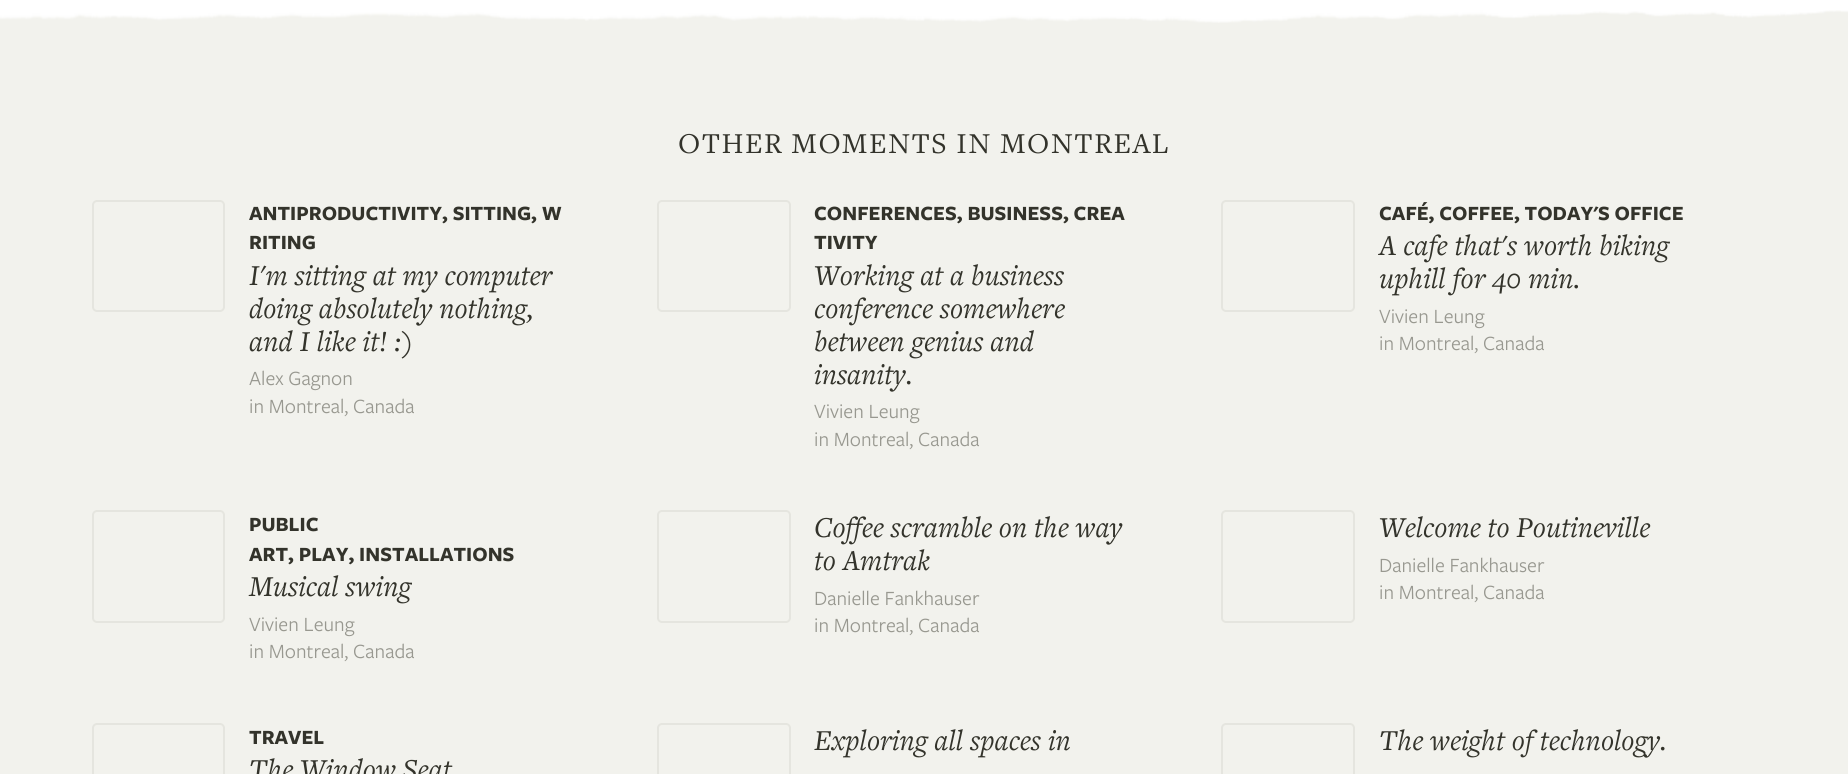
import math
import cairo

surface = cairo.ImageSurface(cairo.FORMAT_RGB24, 1848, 774)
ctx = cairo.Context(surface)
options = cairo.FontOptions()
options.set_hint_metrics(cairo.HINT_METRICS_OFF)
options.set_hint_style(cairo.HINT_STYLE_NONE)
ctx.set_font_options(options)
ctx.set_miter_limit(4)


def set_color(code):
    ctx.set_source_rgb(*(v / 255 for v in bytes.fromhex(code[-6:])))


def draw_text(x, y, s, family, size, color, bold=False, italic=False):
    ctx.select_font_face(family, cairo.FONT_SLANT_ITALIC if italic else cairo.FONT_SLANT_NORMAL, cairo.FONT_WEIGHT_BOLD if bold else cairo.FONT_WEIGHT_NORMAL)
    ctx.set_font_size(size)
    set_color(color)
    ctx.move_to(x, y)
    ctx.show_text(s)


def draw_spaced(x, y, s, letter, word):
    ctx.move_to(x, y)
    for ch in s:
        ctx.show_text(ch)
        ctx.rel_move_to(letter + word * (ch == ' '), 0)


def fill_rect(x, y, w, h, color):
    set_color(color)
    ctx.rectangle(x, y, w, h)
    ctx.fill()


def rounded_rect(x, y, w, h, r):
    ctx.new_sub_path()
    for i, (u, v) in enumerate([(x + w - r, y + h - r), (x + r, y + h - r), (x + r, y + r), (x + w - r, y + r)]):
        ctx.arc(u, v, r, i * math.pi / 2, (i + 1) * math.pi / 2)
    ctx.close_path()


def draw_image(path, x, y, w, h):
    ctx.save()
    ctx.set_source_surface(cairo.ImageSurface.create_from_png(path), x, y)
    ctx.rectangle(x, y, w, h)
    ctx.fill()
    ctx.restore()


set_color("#ffffff")
ctx.paint()
fill_rect(0, 23, 1848, 751, "#f2f2ed")
draw_image("assets/img1.png", 0, 10, 1848, 13)
ctx.select_font_face("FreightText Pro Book")
ctx.set_font_size(30)
set_color("#33332b")
draw_spaced(678, 153, "OTHER MOMENTS IN MONTREAL", 1.5, 0)
rounded_rect(93, 201, 131, 110, 4)
set_color("#e5e5df")
ctx.stroke()
draw_text(249, 220, "ANTIPRODUCTIVITY, SITTING, W", "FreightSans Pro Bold", 21, "#33332b", bold=True)
draw_text(249, 249, "RITING", "FreightSans Pro Bold", 21, "#33332b", bold=True)
draw_text(249, 285, "I'm sitting at my computer", "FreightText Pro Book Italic", 30, "#33332b", italic=True)
draw_text(249, 318, "doing absolutely nothing,", "FreightText Pro Book Italic", 30, "#33332b", italic=True)
draw_text(249, 351, "and I like it! :)", "FreightText Pro Book Italic", 30, "#33332b", italic=True)
draw_text(249, 385, "Alex Gagnon", "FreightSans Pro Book", 21, "#989890")
draw_text(249, 413, "in Montreal, Canada", "FreightSans Pro Book", 21, "#989890")
rounded_rect(658, 201, 132, 110, 4)
set_color("#e5e5df")
ctx.stroke()
draw_text(814, 220, "CONFERENCES, BUSINESS, CREA", "FreightSans Pro Bold", 21, "#33332b", bold=True)
draw_text(814, 249, "TIVITY", "FreightSans Pro Bold", 21, "#33332b", bold=True)
draw_text(814, 285, "Working at a business", "FreightText Pro Book Italic", 30, "#33332b", italic=True)
draw_text(814, 318, "conference somewhere", "FreightText Pro Book Italic", 30, "#33332b", italic=True)
draw_text(814, 351, "between genius and", "FreightText Pro Book Italic", 30, "#33332b", italic=True)
draw_text(814, 384, "insanity.", "FreightText Pro Book Italic", 30, "#33332b", italic=True)
draw_text(814, 418, "Vivien Leung", "FreightSans Pro Book", 21, "#989890")
draw_text(814, 446, "in Montreal, Canada", "FreightSans Pro Book", 21, "#989890")
rounded_rect(1222, 201, 132, 110, 4)
set_color("#e5e5df")
ctx.stroke()
draw_text(1379, 220, "CAFÉ, COFFEE, TODAY'S OFFICE", "FreightSans Pro Bold", 21, "#33332b", bold=True)
draw_text(1379, 255, "A cafe that's worth biking", "FreightText Pro Book Italic", 30, "#33332b", italic=True)
draw_text(1379, 288, "uphill for 40 min.", "FreightText Pro Book Italic", 30, "#33332b", italic=True)
draw_text(1379, 323, "Vivien Leung", "FreightSans Pro Book", 21, "#989890")
draw_text(1379, 350, "in Montreal, Canada", "FreightSans Pro Book", 21, "#989890")
rounded_rect(93, 511, 131, 111, 4)
set_color("#e5e5df")
ctx.stroke()
draw_text(249, 531, "PUBLIC", "FreightSans Pro Bold", 21, "#33332b", bold=True)
draw_text(249, 561, "ART, PLAY, INSTALLATIONS", "FreightSans Pro Bold", 21, "#33332b", bold=True)
draw_text(249, 596, "Musical swing", "FreightText Pro Book Italic", 30, "#33332b", italic=True)
draw_text(249, 631, "Vivien Leung", "FreightSans Pro Book", 21, "#989890")
draw_text(249, 658, "in Montreal, Canada", "FreightSans Pro Book", 21, "#989890")
rounded_rect(658, 511, 132, 111, 4)
set_color("#e5e5df")
ctx.stroke()
draw_text(814, 537, "Coffee scramble on the way", "FreightText Pro Book Italic", 30, "#33332b", italic=True)
draw_text(814, 570, "to Amtrak", "FreightText Pro Book Italic", 30, "#33332b", italic=True)
draw_text(814, 605, "Danielle Fankhauser", "FreightSans Pro Book", 21, "#989890")
draw_text(814, 632, "in Montreal, Canada", "FreightSans Pro Book", 21, "#989890")
rounded_rect(1222, 511, 132, 111, 4)
set_color("#e5e5df")
ctx.stroke()
draw_text(1379, 537, "Welcome to Poutineville", "FreightText Pro Book Italic", 30, "#33332b", italic=True)
draw_text(1379, 572, "Danielle Fankhauser", "FreightSans Pro Book", 21, "#989890")
draw_text(1379, 599, "in Montreal, Canada", "FreightSans Pro Book", 21, "#989890")
rounded_rect(93, 724, 131, 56, 4)
set_color("#e5e5df")
ctx.stroke()
draw_text(249, 744, "TRAVEL", "FreightSans Pro Bold", 21, "#33332b", bold=True)
draw_text(249, 779, "The Window Seat", "FreightText Pro Book Italic", 30, "#33332b", italic=True)
rounded_rect(658, 724, 132, 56, 4)
set_color("#e5e5df")
ctx.stroke()
draw_text(814, 750, "Exploring all spaces in", "FreightText Pro Book Italic", 30, "#33332b", italic=True)
rounded_rect(1222, 724, 132, 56, 4)
set_color("#e5e5df")
ctx.stroke()
draw_text(1379, 750, "The weight of technology.", "FreightText Pro Book Italic", 30, "#33332b", italic=True)
surface.write_to_png("output.png")
